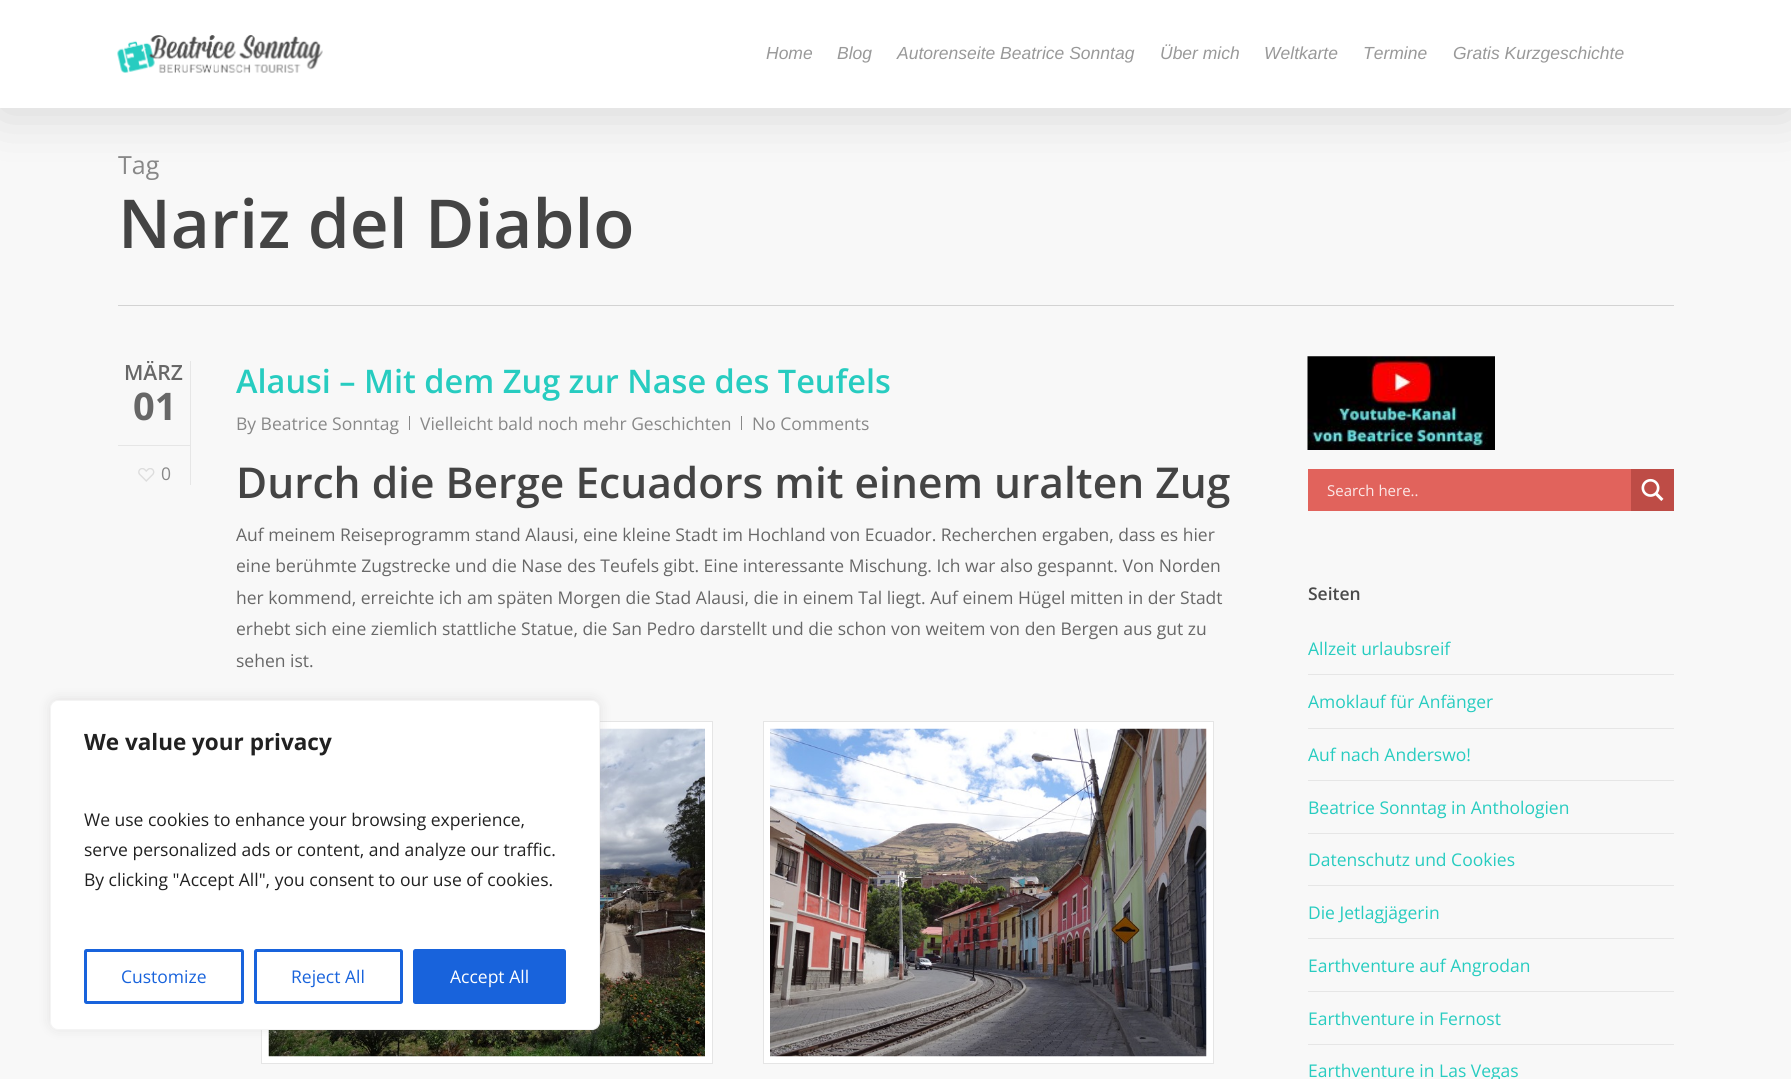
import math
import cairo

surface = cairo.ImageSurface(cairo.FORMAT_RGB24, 1791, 1079)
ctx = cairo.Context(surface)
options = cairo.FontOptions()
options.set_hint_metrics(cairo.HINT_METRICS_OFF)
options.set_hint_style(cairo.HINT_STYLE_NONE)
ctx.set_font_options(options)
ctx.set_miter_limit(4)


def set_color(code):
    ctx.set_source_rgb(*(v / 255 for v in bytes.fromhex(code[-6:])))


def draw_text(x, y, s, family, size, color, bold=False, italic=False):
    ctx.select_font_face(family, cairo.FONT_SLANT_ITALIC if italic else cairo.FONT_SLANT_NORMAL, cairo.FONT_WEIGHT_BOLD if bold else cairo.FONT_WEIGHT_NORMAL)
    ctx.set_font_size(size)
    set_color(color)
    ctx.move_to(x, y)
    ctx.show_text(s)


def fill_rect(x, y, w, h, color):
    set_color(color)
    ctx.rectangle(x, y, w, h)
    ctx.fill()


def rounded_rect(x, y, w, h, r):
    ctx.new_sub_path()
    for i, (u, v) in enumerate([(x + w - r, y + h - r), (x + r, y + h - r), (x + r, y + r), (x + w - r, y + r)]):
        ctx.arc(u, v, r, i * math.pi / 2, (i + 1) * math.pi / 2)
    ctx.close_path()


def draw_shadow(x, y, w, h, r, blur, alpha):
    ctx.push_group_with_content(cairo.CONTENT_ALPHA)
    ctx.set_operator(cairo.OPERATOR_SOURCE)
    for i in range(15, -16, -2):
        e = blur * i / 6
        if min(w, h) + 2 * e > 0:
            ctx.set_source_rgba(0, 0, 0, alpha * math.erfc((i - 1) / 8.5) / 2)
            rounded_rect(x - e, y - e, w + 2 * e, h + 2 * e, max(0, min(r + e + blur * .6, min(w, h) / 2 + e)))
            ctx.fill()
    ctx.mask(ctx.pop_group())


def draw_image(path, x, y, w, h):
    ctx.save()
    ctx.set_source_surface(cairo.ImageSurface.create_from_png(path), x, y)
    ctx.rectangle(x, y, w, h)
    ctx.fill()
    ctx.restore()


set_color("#f8f8f8")
ctx.paint()
set_color("#000000")
draw_shadow(0, 4, 1791, 107, 0, 28, 0.15)
fill_rect(0, 0, 1791, 108, "#ffffff")
draw_image("assets/img1.png", 117, 35, 206, 38)
draw_text(766, 59, "Home", "Liberation Sans", 17.5, "#999999", italic=True)
draw_text(837, 59, "Blog", "Liberation Sans", 17.5, "#999999", italic=True)
draw_text(897, 59, "Autorenseite Beatrice Sonntag", "Liberation Sans", 17.5, "#999999", italic=True)
draw_text(1160, 59, "Über mich", "Liberation Sans", 17.5, "#999999", italic=True)
draw_text(1264, 59, "Weltkarte", "Liberation Sans", 17.5, "#999999", italic=True)
draw_text(1363, 59, "Termine", "Liberation Sans", 17.5, "#999999", italic=True)
draw_text(1453, 59, "Gratis Kurzgeschichte", "Liberation Sans", 17.5, "#999999", italic=True)
fill_rect(118, 305, 1556, 1, "#d3d3d3")
draw_text(118, 174, "Tag", "Open Sans", 25, "#888888")
draw_text(118, 248, "Nariz del Diablo", "Open Sans SemiBold", 67.5, "#444444")
fill_rect(190, 361, 1, 124, "#e6e6e6")
fill_rect(118, 445, 72, 1, "#e6e6e6")
ctx.save()
ctx.rectangle(118, 361, 1122, 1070)
ctx.clip()
draw_text(124, 380, "MÄRZ", "Open Sans SemiBold", 21, "#676767")
ctx.restore()
draw_text(133, 420, "01", "Open Sans", 38, "#676767", bold=True)
draw_image("assets/img2.png", 138, 468, 17, 14)
draw_text(161, 480, "0", "Open Sans", 17.5, "#888888")
draw_text(236, 393, "Alausi – Mit dem Zug zur Nase des Teufels", "Open Sans SemiBold", 32.5, "#27ccc0")
draw_text(236, 430, "By Beatrice Sonntag", "Open Sans", 17.5, "#888888")
fill_rect(409, 416, 1, 14, "#888888")
draw_text(420, 430, "Vielleicht bald noch mehr Geschichten", "Open Sans", 17.5, "#888888")
fill_rect(741, 416, 1, 14, "#888888")
draw_text(752, 430, "No Comments", "Open Sans", 17.5, "#888888")
draw_text(236, 498, "Durch die Berge Ecuadors mit einem uralten Zug", "Open Sans SemiBold", 42.5, "#444444")
draw_text(236, 541, "Auf meinem Reiseprogramm stand Alausi, eine kleine Stadt im Hochland von Ecuador. Recherchen ergaben, dass es hier", "Open Sans", 17.5, "#676767")
draw_text(236, 572, "eine berühmte Zugstrecke und die Nase des Teufels gibt. Eine interessante Mischung. Ich war also gespannt. Von Norden", "Open Sans", 17.5, "#676767")
draw_text(236, 604, "her kommend, erreichte ich am späten Morgen die Stad Alausi, die in einem Tal liegt. Auf einem Hügel mitten in der Stadt", "Open Sans", 17.5, "#676767")
draw_text(236, 635, "erhebt sich eine ziemlich stattliche Statue, die San Pedro darstellt und die schon von weitem von den Bergen aus gut zu", "Open Sans", 17.5, "#676767")
draw_text(236, 667, "sehen ist.", "Open Sans", 17.5, "#676767")
set_color("#ffffff")
ctx.rectangle(261.5, 721.5, 451, 342)
ctx.fill_preserve()
set_color("#e5e5e5")
ctx.set_line_width(1)
ctx.stroke()
draw_image("assets/img3.png", 268, 728, 437, 329)
set_color("#ffffff")
ctx.rectangle(763.5, 721.5, 450, 342)
ctx.fill_preserve()
set_color("#e5e5e5")
ctx.stroke()
draw_image("assets/img4.png", 770, 728, 437, 329)
draw_image("assets/img5.png", 1307, 356, 188, 94)
fill_rect(1308, 469, 323, 42, "#e1635c")
draw_text(1327, 496, "Search here..", "Open Sans", 15, "#fbe8e7")
fill_rect(1631, 469, 43, 42, "#be4c46")
draw_image("assets/img6.png", 1641, 478, 23, 23)
draw_text(1308, 600, "Seiten", "Open Sans SemiBold", 17.5, "#4a4a4a")
fill_rect(1308, 674, 366, 1, "#e6e6e6")
draw_text(1308, 655, "Allzeit urlaubsreif", "Open Sans", 17.5, "#27ccc0")
fill_rect(1308, 728, 366, 1, "#e6e6e6")
draw_text(1308, 708, "Amoklauf für Anfänger", "Open Sans", 17.5, "#27ccc0")
fill_rect(1308, 780, 366, 1, "#e6e6e6")
draw_text(1308, 761, "Auf nach Anderswo!", "Open Sans", 17.5, "#27ccc0")
fill_rect(1308, 833, 366, 1, "#e6e6e6")
draw_text(1308, 814, "Beatrice Sonntag in Anthologien", "Open Sans", 17.5, "#27ccc0")
fill_rect(1308, 885, 366, 1, "#e6e6e6")
draw_text(1308, 866, "Datenschutz und Cookies", "Open Sans", 17.5, "#27ccc0")
fill_rect(1308, 938, 366, 1, "#e6e6e6")
draw_text(1308, 919, "Die Jetlagjägerin", "Open Sans", 17.5, "#27ccc0")
fill_rect(1308, 991, 366, 1, "#e6e6e6")
draw_text(1308, 972, "Earthventure auf Angrodan", "Open Sans", 17.5, "#27ccc0")
fill_rect(1308, 1044, 366, 1, "#e6e6e6")
draw_text(1308, 1025, "Earthventure in Fernost", "Open Sans", 17.5, "#27ccc0")
draw_text(1308, 1077, "Earthventure in Las Vegas", "Open Sans", 17.5, "#27ccc0")
set_color("#acabab")
draw_shadow(50, 699, 550, 330, 8, 6, 0.3)
set_color("#ffffff")
rounded_rect(50.5, 700.5, 549, 329, 7.5)
ctx.fill_preserve()
set_color("#f4f4f4")
ctx.stroke()
draw_text(84, 750, "We value your privacy", "Open Sans", 22.5, "#212121", bold=True)
draw_text(84, 826, "We use cookies to enhance your browsing experience,", "Open Sans", 17.5, "#212121")
draw_text(84, 856, "serve personalized ads or content, and analyze our traffic.", "Open Sans", 17.5, "#212121")
draw_text(84, 886, "By clicking \"Accept All\", you consent to our use of cookies.", "Open Sans", 17.5, "#212121")
rounded_rect(85.5, 950.5, 157, 52, 1)
set_color("#1863dc")
ctx.set_line_width(3)
ctx.stroke()
draw_text(121, 983, "Customize", "Open Sans", 17.5, "#1863dc")
rounded_rect(255.5, 950.5, 146, 52, 1)
ctx.stroke()
draw_text(291, 983, "Reject All", "Open Sans", 17.5, "#1863dc")
rounded_rect(414.5, 950.5, 150, 52, 1)
ctx.fill_preserve()
ctx.stroke()
draw_text(450, 983, "Accept All", "Open Sans", 17.5, "#ffffff")
surface.write_to_png("output.png")
